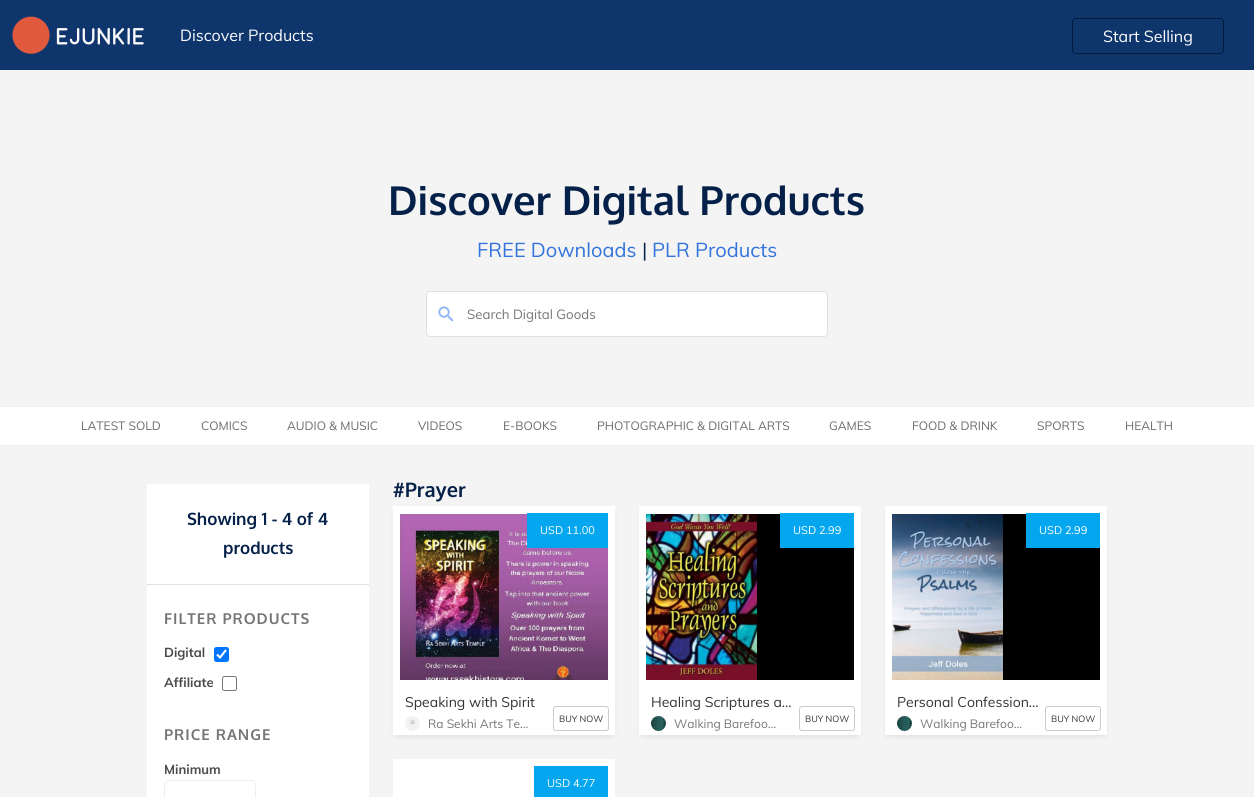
import math
import cairo

surface = cairo.ImageSurface(cairo.FORMAT_RGB24, 1254, 797)
ctx = cairo.Context(surface)
options = cairo.FontOptions()
options.set_hint_metrics(cairo.HINT_METRICS_OFF)
options.set_hint_style(cairo.HINT_STYLE_NONE)
ctx.set_font_options(options)
ctx.set_miter_limit(4)


def set_color(code):
    ctx.set_source_rgb(*(v / 255 for v in bytes.fromhex(code[-6:])))


def draw_text(x, y, s, family, size, color, bold=False, italic=False):
    ctx.select_font_face(family, cairo.FONT_SLANT_ITALIC if italic else cairo.FONT_SLANT_NORMAL, cairo.FONT_WEIGHT_BOLD if bold else cairo.FONT_WEIGHT_NORMAL)
    ctx.set_font_size(size)
    set_color(color)
    ctx.move_to(x, y)
    ctx.show_text(s)


def draw_spaced(x, y, s, letter, word):
    ctx.move_to(x, y)
    for ch in s:
        ctx.show_text(ch)
        ctx.rel_move_to(letter + word * (ch == ' '), 0)


def fill_rect(x, y, w, h, color):
    set_color(color)
    ctx.rectangle(x, y, w, h)
    ctx.fill()


def rounded_rect(x, y, w, h, r):
    ctx.new_sub_path()
    for i, (u, v) in enumerate([(x + w - r, y + h - r), (x + r, y + h - r), (x + r, y + r), (x + w - r, y + r)]):
        ctx.arc(u, v, r, i * math.pi / 2, (i + 1) * math.pi / 2)
    ctx.close_path()


def draw_shadow(x, y, w, h, r, blur, alpha):
    ctx.push_group_with_content(cairo.CONTENT_ALPHA)
    ctx.set_operator(cairo.OPERATOR_SOURCE)
    for i in range(15, -16, -2):
        e = blur * i / 6
        if min(w, h) + 2 * e > 0:
            ctx.set_source_rgba(0, 0, 0, alpha * math.erfc((i - 1) / 8.5) / 2)
            rounded_rect(x - e, y - e, w + 2 * e, h + 2 * e, max(0, min(r + e + blur * .6, min(w, h) / 2 + e)))
            ctx.fill()
    ctx.mask(ctx.pop_group())


def draw_image(path, x, y, w, h):
    ctx.save()
    ctx.set_source_surface(cairo.ImageSurface.create_from_png(path), x, y)
    ctx.rectangle(x, y, w, h)
    ctx.fill()
    ctx.restore()


set_color("#f4f4f4")
ctx.paint()
fill_rect(0, 0, 1254, 70, "#0f356d")
draw_image("assets/img1.png", 12, 16, 132, 38)
draw_text(180, 41, "Discover Products", "Muli", 16, "#ffffff")
rounded_rect(1072.5, 18.5, 151, 35, 3.5)
set_color("#031a3a")
ctx.set_line_width(1)
ctx.stroke()
draw_text(1103, 42, "Start Selling", "Muli", 16, "#ffffff")
draw_text(388, 215, "Discover Digital Products", "Oxygen", 40, "#052149", bold=True)
draw_text(477, 257, "FREE Downloads", "Muli", 20, "#3273dc")
draw_text(642, 257, "|", "Muli", 20, "#052149")
draw_text(652, 257, "PLR Products", "Muli", 20, "#3273dc")
set_color("#ffffff")
rounded_rect(426.5, 291.5, 401, 45, 3.5)
ctx.fill_preserve()
set_color("#e0e0e0")
ctx.stroke()
draw_image("assets/img2.png", 438, 306, 16, 16)
draw_text(467, 319, "Search Digital Goods", "Muli", 13.25, "#757575")
fill_rect(0, 407, 1254, 38, "#ffffff")
fill_rect(0, 406, 1254, 1, "#f1f1f1")
fill_rect(0, 445, 1254, 1, "#f1f1f1")
draw_text(81, 430, "LATEST SOLD", "Muli", 12, "#696969")
draw_text(201, 430, "COMICS", "Muli", 12, "#696969")
draw_text(287, 430, "AUDIO & MUSIC", "Muli", 12, "#696969")
draw_text(418, 430, "VIDEOS", "Muli", 12, "#696969")
draw_text(503, 430, "E-BOOKS", "Muli", 12, "#696969")
draw_text(597, 430, "PHOTOGRAPHIC & DIGITAL ARTS", "Muli", 12, "#696969")
draw_text(829, 430, "GAMES", "Muli", 12, "#696969")
draw_text(912, 430, "FOOD & DRINK", "Muli", 12, "#696969")
draw_text(1037, 430, "SPORTS", "Muli", 12, "#696969")
draw_text(1125, 430, "HEALTH", "Muli", 12, "#696969")
fill_rect(147, 484, 222, 313, "#ffffff")
fill_rect(147, 584, 222, 1, "#e0e0e0")
draw_text(187, 525, "Showing 1 - 4 of 4", "Oxygen", 17, "#052149", bold=True)
draw_text(223, 554, "products", "Oxygen", 17, "#052149", bold=True)
ctx.set_font_size(15)
set_color("#757575")
draw_spaced(164, 624, "FILTER PRODUCTS", 1, 0)
draw_text(164, 657, "Digital", "Muli", 13, "#4a4a4a", bold=True)
set_color("#0075ff")
rounded_rect(214, 647, 15, 15, 2.5)
ctx.fill()
ctx.new_path()
ctx.move_to(217, 654.5)
ctx.line_to(220, 657.5)
ctx.line_to(226, 650)
set_color("#ffffff")
ctx.set_line_width(2.1)
ctx.stroke()
draw_text(164, 687, "Affiliate", "Muli", 13, "#4a4a4a", bold=True)
rounded_rect(222.5, 676.5, 14, 14, 2)
set_color("#767676")
ctx.set_line_width(1)
ctx.stroke()
ctx.select_font_face("Oxygen", cairo.FONT_SLANT_NORMAL, cairo.FONT_WEIGHT_BOLD)
ctx.set_font_size(15)
set_color("#757575")
draw_spaced(164, 740, "PRICE RANGE", 1, 0)
draw_text(164, 774, "Minimum", "Muli", 13, "#4a4a4a", bold=True)
rounded_rect(164.5, 780.5, 91, 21, 3.5)
set_color("#efefef")
ctx.stroke()
draw_text(393, 497, "#Prayer", "Oxygen", 20, "#052149", bold=True)
set_color("#000000")
draw_shadow(397, 513, 214, 221, 0, 4, 0.15)
fill_rect(400, 513, 208, 215, "#ffffff")
ctx.new_path()
ctx.move_to(396.5, 509.5)
ctx.line_to(611.5, 509.5)
ctx.line_to(611.5, 731.5)
ctx.line_to(396.5, 731.5)
ctx.close_path()
ctx.set_line_width(7)
ctx.stroke()
draw_image("assets/img3.png", 400, 514, 208, 166)
fill_rect(527, 513, 81, 35, "#03a6ef")
draw_text(540, 534, "USD 11.00", "Muli", 11, "#ffffff")
draw_text(405, 707, "Speaking with Spirit", "Muli", 14, "#333333")
draw_image("assets/img4.png", 405, 716, 15, 15)
draw_text(428, 728, "Ra Sekhi Arts Te…", "Muli", 12, "#757575")
rounded_rect(553.5, 706.5, 55, 24, 2.5)
set_color("#cccccc")
ctx.set_line_width(1)
ctx.stroke()
draw_text(559, 722, "BUY NOW", "Muli", 9, "#333333")
set_color("#000000")
draw_shadow(643, 513, 214, 221, 0, 4, 0.15)
fill_rect(646, 513, 208, 215, "#ffffff")
ctx.new_path()
ctx.move_to(642.5, 509.5)
ctx.line_to(857.5, 509.5)
ctx.line_to(857.5, 731.5)
ctx.line_to(642.5, 731.5)
ctx.close_path()
ctx.set_line_width(7)
ctx.stroke()
draw_image("assets/img5.png", 646, 514, 208, 166)
fill_rect(780, 513, 74, 35, "#03a6ef")
draw_text(793, 534, "USD 2.99", "Muli", 11, "#ffffff")
draw_text(651, 707, "Healing Scriptures a…", "Muli", 14, "#333333")
draw_image("assets/img6.png", 651, 716, 15, 15)
draw_text(674, 728, "Walking Barefoo…", "Muli", 12, "#757575")
rounded_rect(799.5, 706.5, 55, 24, 2.5)
set_color("#cccccc")
ctx.set_line_width(1)
ctx.stroke()
draw_text(805, 722, "BUY NOW", "Muli", 9, "#333333")
set_color("#000000")
draw_shadow(889, 513, 214, 221, 0, 4, 0.15)
fill_rect(892, 513, 208, 215, "#ffffff")
ctx.new_path()
ctx.move_to(888.5, 509.5)
ctx.line_to(1103.5, 509.5)
ctx.line_to(1103.5, 731.5)
ctx.line_to(888.5, 731.5)
ctx.close_path()
ctx.set_line_width(7)
ctx.stroke()
draw_image("assets/img7.png", 892, 514, 208, 166)
fill_rect(1026, 513, 74, 35, "#03a6ef")
draw_text(1039, 534, "USD 2.99", "Muli", 11, "#ffffff")
draw_text(897, 707, "Personal Confession…", "Muli", 14, "#333333")
draw_image("assets/img8.png", 897, 716, 15, 15)
draw_text(920, 728, "Walking Barefoo…", "Muli", 12, "#757575")
rounded_rect(1045.5, 706.5, 55, 24, 2.5)
set_color("#cccccc")
ctx.set_line_width(1)
ctx.stroke()
draw_text(1051, 722, "BUY NOW", "Muli", 9, "#333333")
fill_rect(400, 766, 134, 31, "#ffffff")
ctx.new_path()
ctx.move_to(396.5, 762.5)
ctx.line_to(611.5, 762.5)
ctx.line_to(611.5, 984.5)
ctx.line_to(396.5, 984.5)
ctx.close_path()
ctx.set_line_width(7)
ctx.stroke()
fill_rect(534, 766, 74, 31, "#03a6ef")
draw_text(547, 787, "USD 4.77", "Muli", 11, "#ffffff")
surface.write_to_png("output.png")
